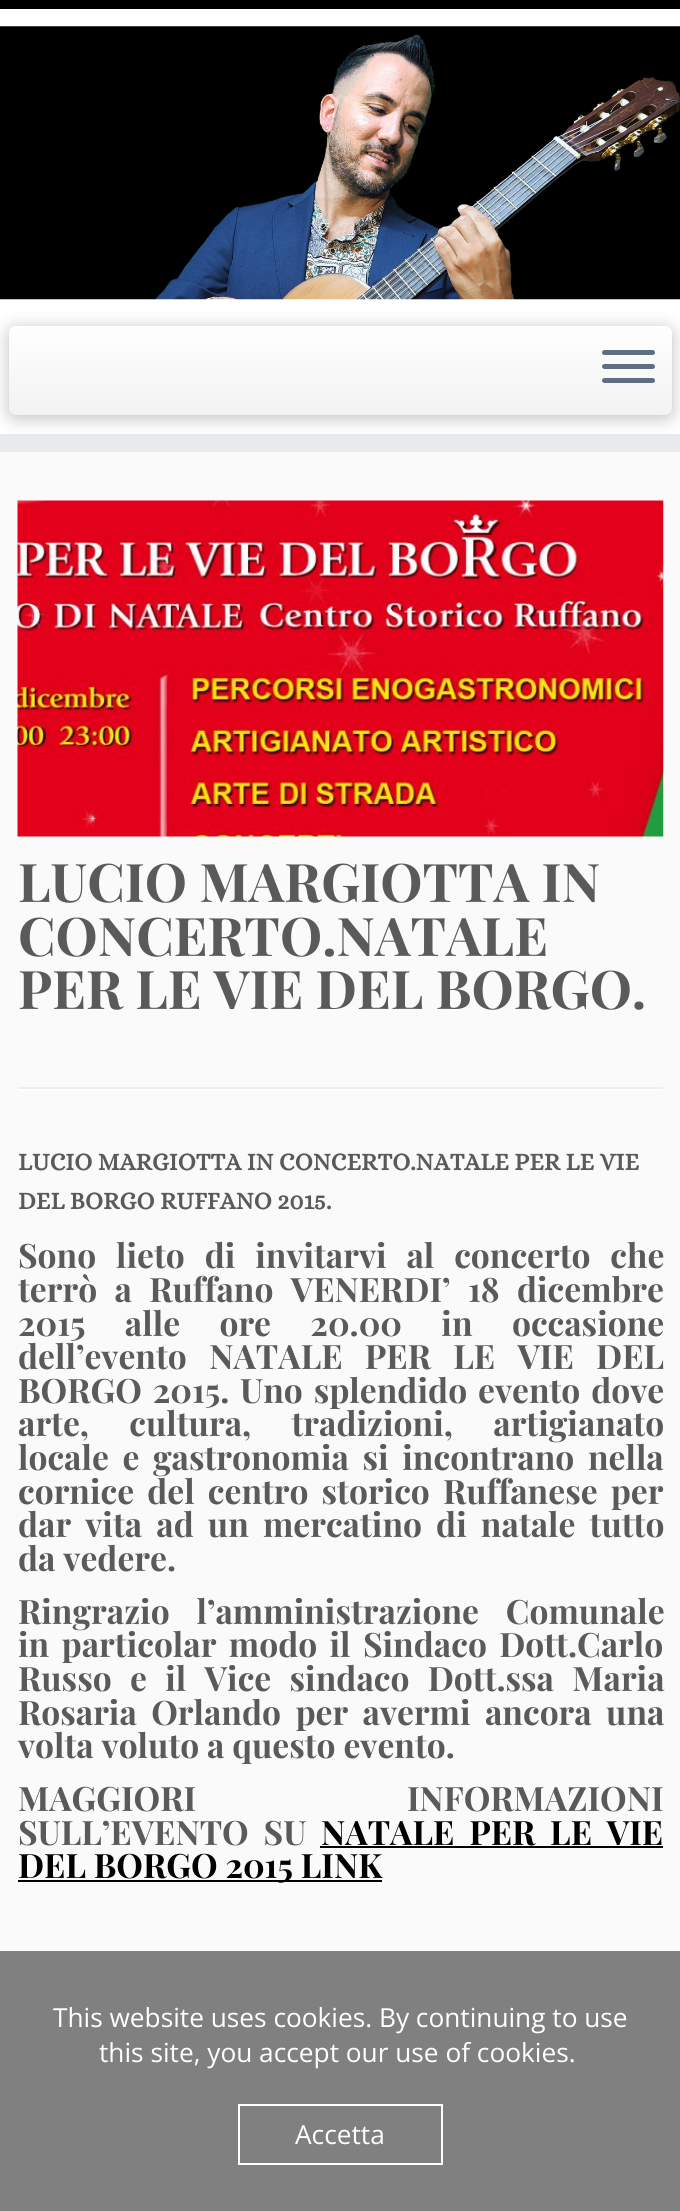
import math
import cairo

surface = cairo.ImageSurface(cairo.FORMAT_RGB24, 680, 2211)
ctx = cairo.Context(surface)
options = cairo.FontOptions()
options.set_hint_metrics(cairo.HINT_METRICS_OFF)
options.set_hint_style(cairo.HINT_STYLE_NONE)
ctx.set_font_options(options)
ctx.set_miter_limit(4)


def set_color(code):
    ctx.set_source_rgb(*(v / 255 for v in bytes.fromhex(code[-6:])))


def draw_text(x, y, s, family, size, color, bold=False, italic=False):
    ctx.select_font_face(family, cairo.FONT_SLANT_ITALIC if italic else cairo.FONT_SLANT_NORMAL, cairo.FONT_WEIGHT_BOLD if bold else cairo.FONT_WEIGHT_NORMAL)
    ctx.set_font_size(size)
    set_color(color)
    ctx.move_to(x, y)
    ctx.show_text(s)


def draw_spaced(x, y, s, letter, word):
    ctx.move_to(x, y)
    for ch in s:
        ctx.show_text(ch)
        ctx.rel_move_to(letter + word * (ch == ' '), 0)


def fill_rect(x, y, w, h, color):
    set_color(color)
    ctx.rectangle(x, y, w, h)
    ctx.fill()


def rounded_rect(x, y, w, h, r):
    ctx.new_sub_path()
    for i, (u, v) in enumerate([(x + w - r, y + h - r), (x + r, y + h - r), (x + r, y + r), (x + w - r, y + r)]):
        ctx.arc(u, v, r, i * math.pi / 2, (i + 1) * math.pi / 2)
    ctx.close_path()


def draw_shadow(x, y, w, h, r, blur, alpha):
    ctx.push_group_with_content(cairo.CONTENT_ALPHA)
    ctx.set_operator(cairo.OPERATOR_SOURCE)
    for i in range(15, -16, -2):
        e = blur * i / 6
        if min(w, h) + 2 * e > 0:
            ctx.set_source_rgba(0, 0, 0, alpha * math.erfc((i - 1) / 8.5) / 2)
            rounded_rect(x - e, y - e, w + 2 * e, h + 2 * e, max(0, min(r + e + blur * .6, min(w, h) / 2 + e)))
            ctx.fill()
    ctx.mask(ctx.pop_group())


def draw_image(path, x, y, w, h):
    ctx.save()
    ctx.set_source_surface(cairo.ImageSurface.create_from_png(path), x, y)
    ctx.rectangle(x, y, w, h)
    ctx.fill()
    ctx.restore()


set_color("#fafafa")
ctx.paint()
fill_rect(0, 9, 680, 425, "#ffffff")
fill_rect(0, 0, 680, 9, "#000000")
fill_rect(0, 434, 680, 18, "#e9eaee")
draw_image("assets/img1.png", 0, 26, 680, 274)
set_color("#000000")
draw_shadow(9, 329, 663, 89, 7, 9, 0.25)
gradient = cairo.LinearGradient(340, 325, 340, 415)
gradient.add_color_stop_rgba(0, 1, 1, 1, 1)
gradient.add_color_stop_rgba(1, 0.949, 0.949, 0.949, 1)
ctx.set_source(gradient)
rounded_rect(9, 326, 663, 89, 7)
ctx.fill()
set_color("#5f6f81")
rounded_rect(602, 350, 53, 5, 2.5)
ctx.fill()
rounded_rect(602, 364, 53, 5, 2.5)
ctx.fill()
rounded_rect(602, 378, 53, 5, 2.5)
ctx.fill()
draw_image("assets/img2.png", 17, 500, 647, 337)
draw_text(18, 902, "LUCIO MARGIOTTA IN", "Playfair Display", 53.25, "#5a5a5a", bold=True)
draw_text(18, 956, "CONCERTO.NATALE", "Playfair Display", 53.25, "#5a5a5a", bold=True)
draw_text(18, 1009, "PER LE VIE DEL BORGO.", "Playfair Display", 53.25, "#5a5a5a", bold=True)
fill_rect(18, 1087, 645, 2, "#eeeeee")
fill_rect(18, 1089, 645, 2, "#ffffff")
draw_text(18, 1170, "LUCIO MARGIOTTA IN CONCERTO.NATALE PER LE VIE", "Alice", 24.5, "#5a5a5a", bold=True)
draw_text(18, 1209, "DEL BORGO RUFFANO 2015.", "Alice", 24.5, "#5a5a5a", bold=True)
ctx.select_font_face("Playfair Display", cairo.FONT_SLANT_NORMAL, cairo.FONT_WEIGHT_BOLD)
ctx.set_font_size(33.6)
draw_spaced(18, 1268, "Sono lieto di invitarvi al concerto che", 0, 12)
draw_spaced(18, 1302, "terrò a Ruffano VENERDI’ 18 dicembre", 0, 9.5)
draw_spaced(18, 1336, "2015 alle ore 20.00 in occasione", 0, 31.5)
draw_spaced(18, 1369, "dell’evento NATALE PER LE VIE DEL", 0, 14.5)
draw_spaced(18, 1403, "BORGO 2015. Uno splendido evento dove", 0, 3)
draw_spaced(18, 1436, "arte, cultura, tradizioni, artigianato", 0, 32.5)
draw_spaced(18, 1470, "locale e gastronomia si incontrano nella", 0, 5.75)
draw_spaced(18, 1504, "cornice del centro storico Ruffanese per", 0, 5.25)
draw_spaced(18, 1537, "dar vita ad un mercatino di natale tutto", 0, 6.25)
draw_text(18, 1571, "da vedere.", "Playfair Display", 33.6, "#5a5a5a", bold=True)
draw_spaced(18, 1624, "Ringrazio l’amministrazione Comunale", 0, 19)
draw_spaced(18, 1657, "in particolar modo il Sindaco Dott.Carlo", 0, 4.5)
draw_spaced(18, 1691, "Russo e il Vice sindaco Dott.ssa Maria", 0, 10.5)
draw_spaced(18, 1725, "Rosaria Orlando per avermi ancora una", 0, 6.5)
draw_text(18, 1758, "volta voluto a questo evento.", "Playfair Display", 33.6, "#5a5a5a", bold=True)
draw_spaced(18, 1811, "MAGGIORI INFORMAZIONI", 0, 203)
draw_spaced(18, 1845, "SULL’EVENTO SU", 0, 7)
set_color("#000000")
draw_spaced(321, 1845, "NATALE PER LE VIE", 0, 7)
fill_rect(320, 1846, 343, 2, "#000000")
fill_rect(18, 1880, 364, 2, "#000000")
draw_text(18, 1878, "DEL BORGO 2015 LINK", "Playfair Display", 33.6, "#000000", bold=True)
fill_rect(0, 1951, 680, 260, "#808080")
draw_text(53, 2027, "This website uses cookies. By continuing to use", "Open Sans", 26.25, "#ffffff")
draw_text(99, 2062, "this site, you accept our use of cookies.", "Open Sans", 26.25, "#ffffff")
ctx.rectangle(239, 2105, 203, 59)
ctx.stroke()
draw_text(295, 2144, "Accetta", "Open Sans", 26.25, "#ffffff")
surface.write_to_png("output.png")
